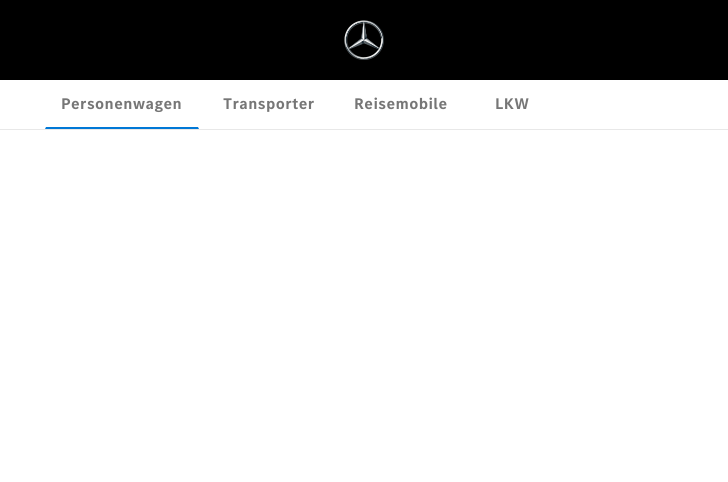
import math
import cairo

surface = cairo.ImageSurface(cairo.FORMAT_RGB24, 728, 482)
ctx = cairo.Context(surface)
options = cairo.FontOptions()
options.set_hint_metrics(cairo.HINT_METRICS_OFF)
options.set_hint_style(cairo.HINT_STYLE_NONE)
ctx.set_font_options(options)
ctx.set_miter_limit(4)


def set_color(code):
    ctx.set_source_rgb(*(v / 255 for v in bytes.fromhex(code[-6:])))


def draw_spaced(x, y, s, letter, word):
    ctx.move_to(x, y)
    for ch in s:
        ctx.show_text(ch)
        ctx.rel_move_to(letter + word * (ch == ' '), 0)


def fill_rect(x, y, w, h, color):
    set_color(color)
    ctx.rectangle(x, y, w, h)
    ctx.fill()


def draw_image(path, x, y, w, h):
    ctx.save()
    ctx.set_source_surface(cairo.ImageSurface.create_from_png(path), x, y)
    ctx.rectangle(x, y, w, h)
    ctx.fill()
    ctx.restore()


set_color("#ffffff")
ctx.paint()
fill_rect(0, 0, 728, 80, "#000000")
draw_image("assets/img1.png", 344, 20, 40, 40)
fill_rect(0, 129, 728, 1, "#e8e8e8")
set_color("#0078d6")
ctx.new_path()
ctx.move_to(199, 129)
ctx.line_to(45, 129)
ctx.line_to(46, 127)
ctx.line_to(198, 127)
ctx.close_path()
ctx.fill()
ctx.select_font_face("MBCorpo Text", cairo.FONT_SLANT_NORMAL, cairo.FONT_WEIGHT_BOLD)
ctx.set_font_size(16)
set_color("#767676")
draw_spaced(61, 109, "Personenwagen", 0.4, 0)
draw_spaced(223, 109, "Transporter", 0.4, 0)
draw_spaced(354, 109, "Reisemobile", 0.4, 0)
draw_spaced(495, 109, "LKW", 0.4, 0)
surface.write_to_png("output.png")
